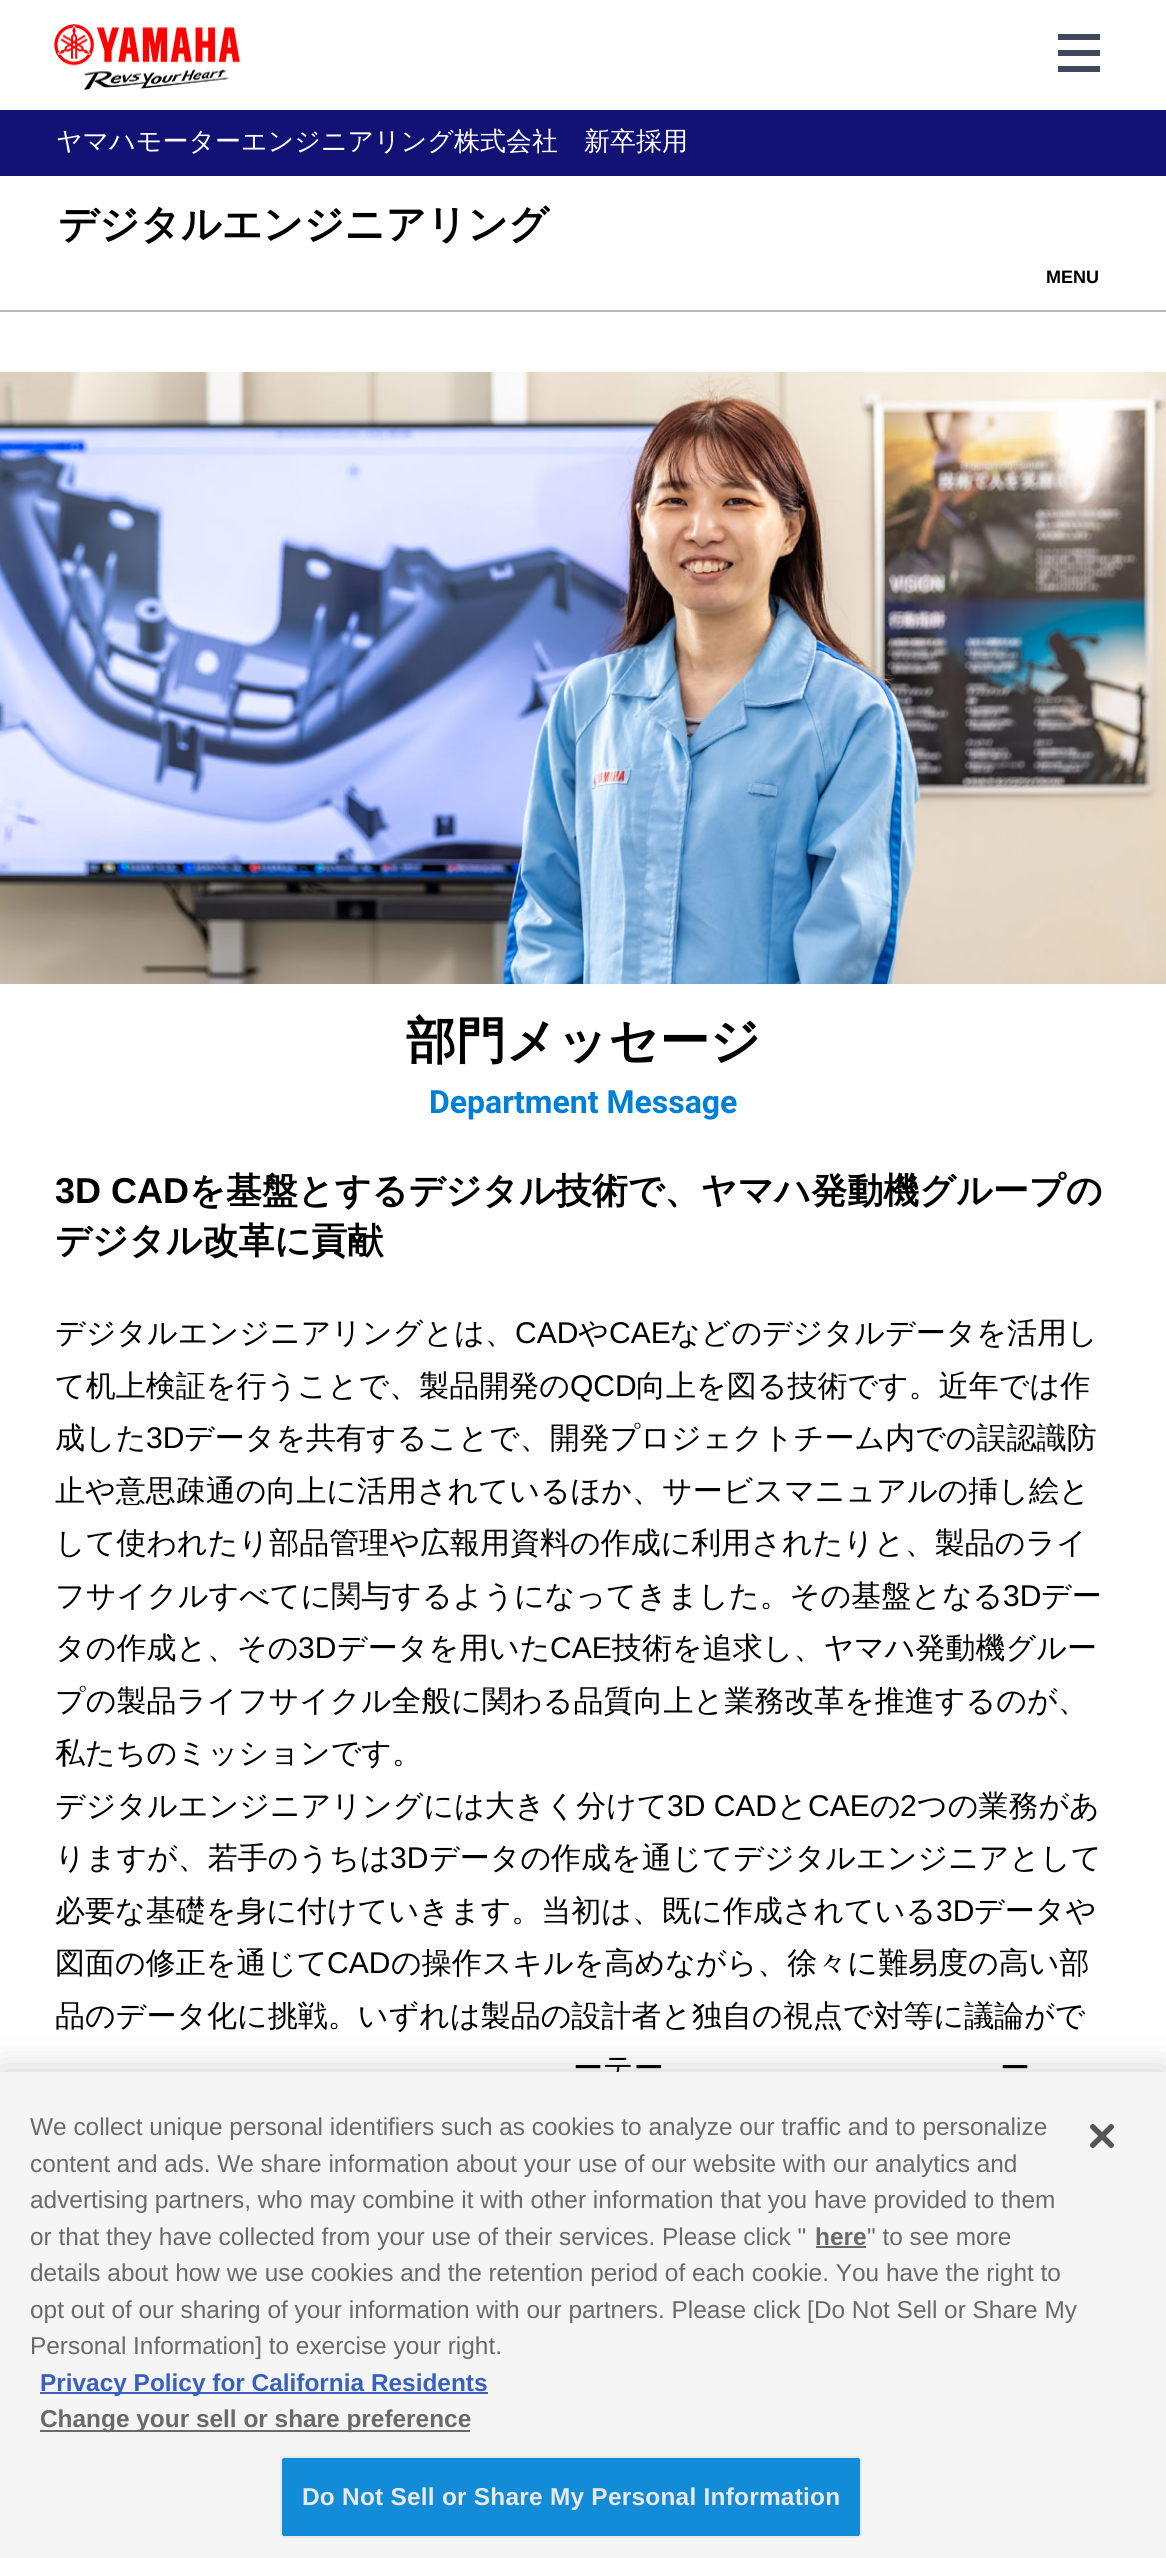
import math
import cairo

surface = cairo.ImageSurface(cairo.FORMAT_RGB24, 1166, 2558)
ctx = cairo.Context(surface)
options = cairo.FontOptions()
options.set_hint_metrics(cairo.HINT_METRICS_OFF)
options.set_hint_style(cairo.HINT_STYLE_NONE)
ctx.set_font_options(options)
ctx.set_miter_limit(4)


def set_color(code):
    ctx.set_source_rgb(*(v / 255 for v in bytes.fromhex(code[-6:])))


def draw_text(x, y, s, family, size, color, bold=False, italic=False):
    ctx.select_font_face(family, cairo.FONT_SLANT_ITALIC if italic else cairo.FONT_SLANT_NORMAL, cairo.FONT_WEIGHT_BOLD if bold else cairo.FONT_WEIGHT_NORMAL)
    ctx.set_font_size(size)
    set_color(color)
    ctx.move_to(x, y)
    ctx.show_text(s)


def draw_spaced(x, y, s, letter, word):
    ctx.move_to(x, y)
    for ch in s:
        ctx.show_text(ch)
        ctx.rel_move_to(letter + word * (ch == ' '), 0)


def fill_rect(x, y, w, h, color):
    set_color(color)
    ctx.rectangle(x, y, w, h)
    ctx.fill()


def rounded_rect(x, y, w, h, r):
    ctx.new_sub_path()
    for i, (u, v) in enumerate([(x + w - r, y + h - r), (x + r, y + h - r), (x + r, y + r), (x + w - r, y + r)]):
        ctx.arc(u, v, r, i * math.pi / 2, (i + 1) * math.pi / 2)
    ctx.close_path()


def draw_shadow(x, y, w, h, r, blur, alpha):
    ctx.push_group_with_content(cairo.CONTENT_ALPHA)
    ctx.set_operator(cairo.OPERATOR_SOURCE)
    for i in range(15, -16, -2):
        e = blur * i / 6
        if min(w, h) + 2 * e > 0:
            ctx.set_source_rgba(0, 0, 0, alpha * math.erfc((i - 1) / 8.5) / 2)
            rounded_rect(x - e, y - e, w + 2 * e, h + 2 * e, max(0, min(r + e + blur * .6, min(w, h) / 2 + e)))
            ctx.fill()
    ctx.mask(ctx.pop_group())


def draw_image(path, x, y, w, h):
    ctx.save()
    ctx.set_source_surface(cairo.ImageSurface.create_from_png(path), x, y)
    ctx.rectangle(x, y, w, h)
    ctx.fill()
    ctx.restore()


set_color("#ffffff")
ctx.paint()
fill_rect(1058, 34, 42, 6, "#3e495c")
fill_rect(1058, 50, 42, 6, "#3e495c")
fill_rect(1058, 66, 42, 6, "#3e495c")
draw_image("assets/img1.png", 54, 24, 186, 66)
fill_rect(0, 110, 1166, 66, "#111273")
draw_text(56, 150, "ヤマハモーターエンジニアリング株式会社", "WenQuanYi Zen Hei Medium", 26, "#ffffff")
draw_text(584, 150, "新卒採用", "WenQuanYi Zen Hei Medium", 26, "#ffffff")
fill_rect(0, 310, 1166, 2, "#b9b9b9")
draw_text(58, 238, "デジタルエンジニアリング", "WenQuanYi Zen Hei", 40, "#000000", bold=True)
draw_text(1046, 283, "MENU", "Liberation Sans", 18, "#000000", bold=True)
draw_image("assets/img2.png", 0, 372, 1166, 612)
draw_text(406, 1058, "部門メッセージ", "WenQuanYi Zen Hei", 50, "#000000", bold=True)
draw_text(429, 1113, "Department Message", "Roboto", 32, "#0080d5", bold=True)
draw_text(55, 1203, "3D CAD", "Liberation Sans", 36, "#000000", bold=True)
draw_text(189, 1203, "を基盤とするデジタル技術で、ヤマハ発動機グループの", "WenQuanYi Zen Hei", 36, "#000000", bold=True)
draw_text(55, 1253, "デジタル改革に貢献", "WenQuanYi Zen Hei", 36, "#000000", bold=True)
draw_text(55, 1343, "デジタルエンジニアリングとは、", "WenQuanYi Zen Hei Medium", 30, "#000000")
draw_text(515, 1343, "CAD", "Liberation Sans", 30, "#000000")
draw_text(578, 1343, "や", "WenQuanYi Zen Hei Medium", 30, "#000000")
draw_text(609, 1343, "CAE", "Liberation Sans", 30, "#000000")
draw_text(670, 1343, "などのデジタルデータを活用し", "WenQuanYi Zen Hei Medium", 30, "#000000")
draw_text(55, 1396, "て机上検証を行うことで、製品開発の", "WenQuanYi Zen Hei Medium", 30, "#000000")
draw_text(570, 1396, "QCD", "Liberation Sans", 30, "#000000")
draw_text(636, 1396, "向上を図る技術です。近年では作", "WenQuanYi Zen Hei Medium", 30, "#000000")
draw_text(55, 1448, "成した", "WenQuanYi Zen Hei Medium", 30, "#000000")
draw_text(146, 1448, "3D", "Liberation Sans", 30, "#000000")
draw_text(184, 1448, "データを共有することで、開発プロジェクトチーム内での誤認識防", "WenQuanYi Zen Hei Medium", 30, "#000000")
draw_text(55, 1501, "止や意思疎通の向上に活用されているほか、サービスマニュアルの挿し絵と", "WenQuanYi Zen Hei Medium", 30, "#000000")
draw_text(55, 1553, "して使われたり部品管理や広報用資料の作成に利用されたりと、製品のライ", "WenQuanYi Zen Hei Medium", 30, "#000000")
draw_text(55, 1606, "フサイクルすべてに関与するようになってきました。その基盤となる", "WenQuanYi Zen Hei Medium", 30, "#000000")
draw_text(1003, 1606, "3D", "Liberation Sans", 30, "#000000")
draw_text(1041, 1606, "デー", "WenQuanYi Zen Hei Medium", 30, "#000000")
draw_text(55, 1658, "タの作成と、その", "WenQuanYi Zen Hei Medium", 30, "#000000")
draw_text(298, 1658, "3D", "Liberation Sans", 30, "#000000")
draw_text(337, 1658, "データを用いた", "WenQuanYi Zen Hei Medium", 30, "#000000")
draw_text(550, 1658, "CAE", "Liberation Sans", 30, "#000000")
draw_text(612, 1658, "技術を追求し、ヤマハ発動機グルー", "WenQuanYi Zen Hei Medium", 30, "#000000")
draw_text(55, 1711, "プの製品ライフサイクル全般に関わる品質向上と業務改革を推進するのが、", "WenQuanYi Zen Hei Medium", 30, "#000000")
draw_text(55, 1763, "私たちのミッションです。", "WenQuanYi Zen Hei Medium", 30, "#000000")
draw_text(55, 1816, "デジタルエンジニアリングには大きく分けて", "WenQuanYi Zen Hei Medium", 30, "#000000")
draw_text(667, 1816, "3D CAD", "Liberation Sans", 30, "#000000")
draw_text(777, 1816, "と", "WenQuanYi Zen Hei Medium", 30, "#000000")
draw_text(808, 1816, "CAE", "Liberation Sans", 30, "#000000")
draw_text(870, 1816, "の", "WenQuanYi Zen Hei Medium", 30, "#000000")
draw_text(900, 1816, "2", "Liberation Sans", 30, "#000000")
draw_text(917, 1816, "つの業務があ", "WenQuanYi Zen Hei Medium", 30, "#000000")
draw_text(55, 1868, "りますが、若手のうちは", "WenQuanYi Zen Hei Medium", 30, "#000000")
draw_text(390, 1868, "3D", "Liberation Sans", 30, "#000000")
draw_text(429, 1868, "データの作成を通じてデジタルエンジニアとして", "WenQuanYi Zen Hei Medium", 30, "#000000")
draw_text(55, 1921, "必要な基礎を身に付けていきます。当初は、既に作成されている", "WenQuanYi Zen Hei Medium", 30, "#000000")
draw_text(936, 1921, "3D", "Liberation Sans", 30, "#000000")
draw_text(974, 1921, "データや", "WenQuanYi Zen Hei Medium", 30, "#000000")
draw_text(55, 1973, "図面の修正を通じて", "WenQuanYi Zen Hei Medium", 30, "#000000")
draw_text(327, 1973, "CAD", "Liberation Sans", 30, "#000000")
draw_text(391, 1973, "の操作スキルを高めながら、徐々に難易度の高い部", "WenQuanYi Zen Hei Medium", 30, "#000000")
draw_text(55, 2026, "品のデータ化に挑戦。いずれは製品の設計者と独自の視点で対等に議論がで", "WenQuanYi Zen Hei Medium", 30, "#000000")
draw_text(573, 2078, "ーテー", "WenQuanYi Zen Hei Medium", 30, "#000000")
draw_text(1000, 2078, "ー", "WenQuanYi Zen Hei Medium", 30, "#000000")
set_color("#000000")
draw_shadow(0, 2072, 1166, 486, 0, 18, 0.2)
fill_rect(0, 2072, 1166, 486, "#f5f5f5")
draw_text(30, 2135, "We collect unique personal identifiers such as cookies to analyze our traffic and to personalize", "Liberation Sans", 24.4, "#696969")
draw_text(30, 2172, "content and ads. We share information about your use of our website with our analytics and", "Liberation Sans", 24.4, "#696969")
draw_text(30, 2208, "advertising partners, who may combine it with other information that you have provided to them", "Liberation Sans", 24.4, "#696969")
draw_text(30, 2245, "or that they have collected from your use of their services. Please click \"", "Liberation Sans", 24.4, "#696969")
draw_text(815, 2245, "here", "Liberation Sans", 24.4, "#696969", bold=True)
fill_rect(816, 2246, 50, 2, "#696969")
draw_text(867, 2245, "\" to see more", "Liberation Sans", 24.4, "#696969")
draw_text(30, 2281, "details about how we use cookies and the retention period of each cookie. You have the right to", "Liberation Sans", 24.4, "#696969")
draw_text(30, 2318, "opt out of our sharing of your information with our partners. Please click [Do Not Sell or Share My", "Liberation Sans", 24.4, "#696969")
draw_text(30, 2354, "Personal Information] to exercise your right.", "Liberation Sans", 24.4, "#696969")
fill_rect(40, 2392, 448, 2, "#3860be")
draw_text(40, 2391, "Privacy Policy for California Residents", "Liberation Sans", 24.4, "#3860be", bold=True)
fill_rect(40, 2430, 430, 2, "#696969")
draw_text(40, 2427, "Change your sell or share preference", "Liberation Sans", 24.4, "#696969", bold=True)
set_color("#128cd6")
rounded_rect(281, 2457, 580, 80, 3)
ctx.fill_preserve()
set_color("#e9e9e9")
ctx.stroke()
draw_spaced(302, 2505, "Do Not Sell or Share My Personal Information", 0.25, 0)
draw_image("assets/img3.png", 1090, 2124, 24, 24)
surface.write_to_png("output.png")
